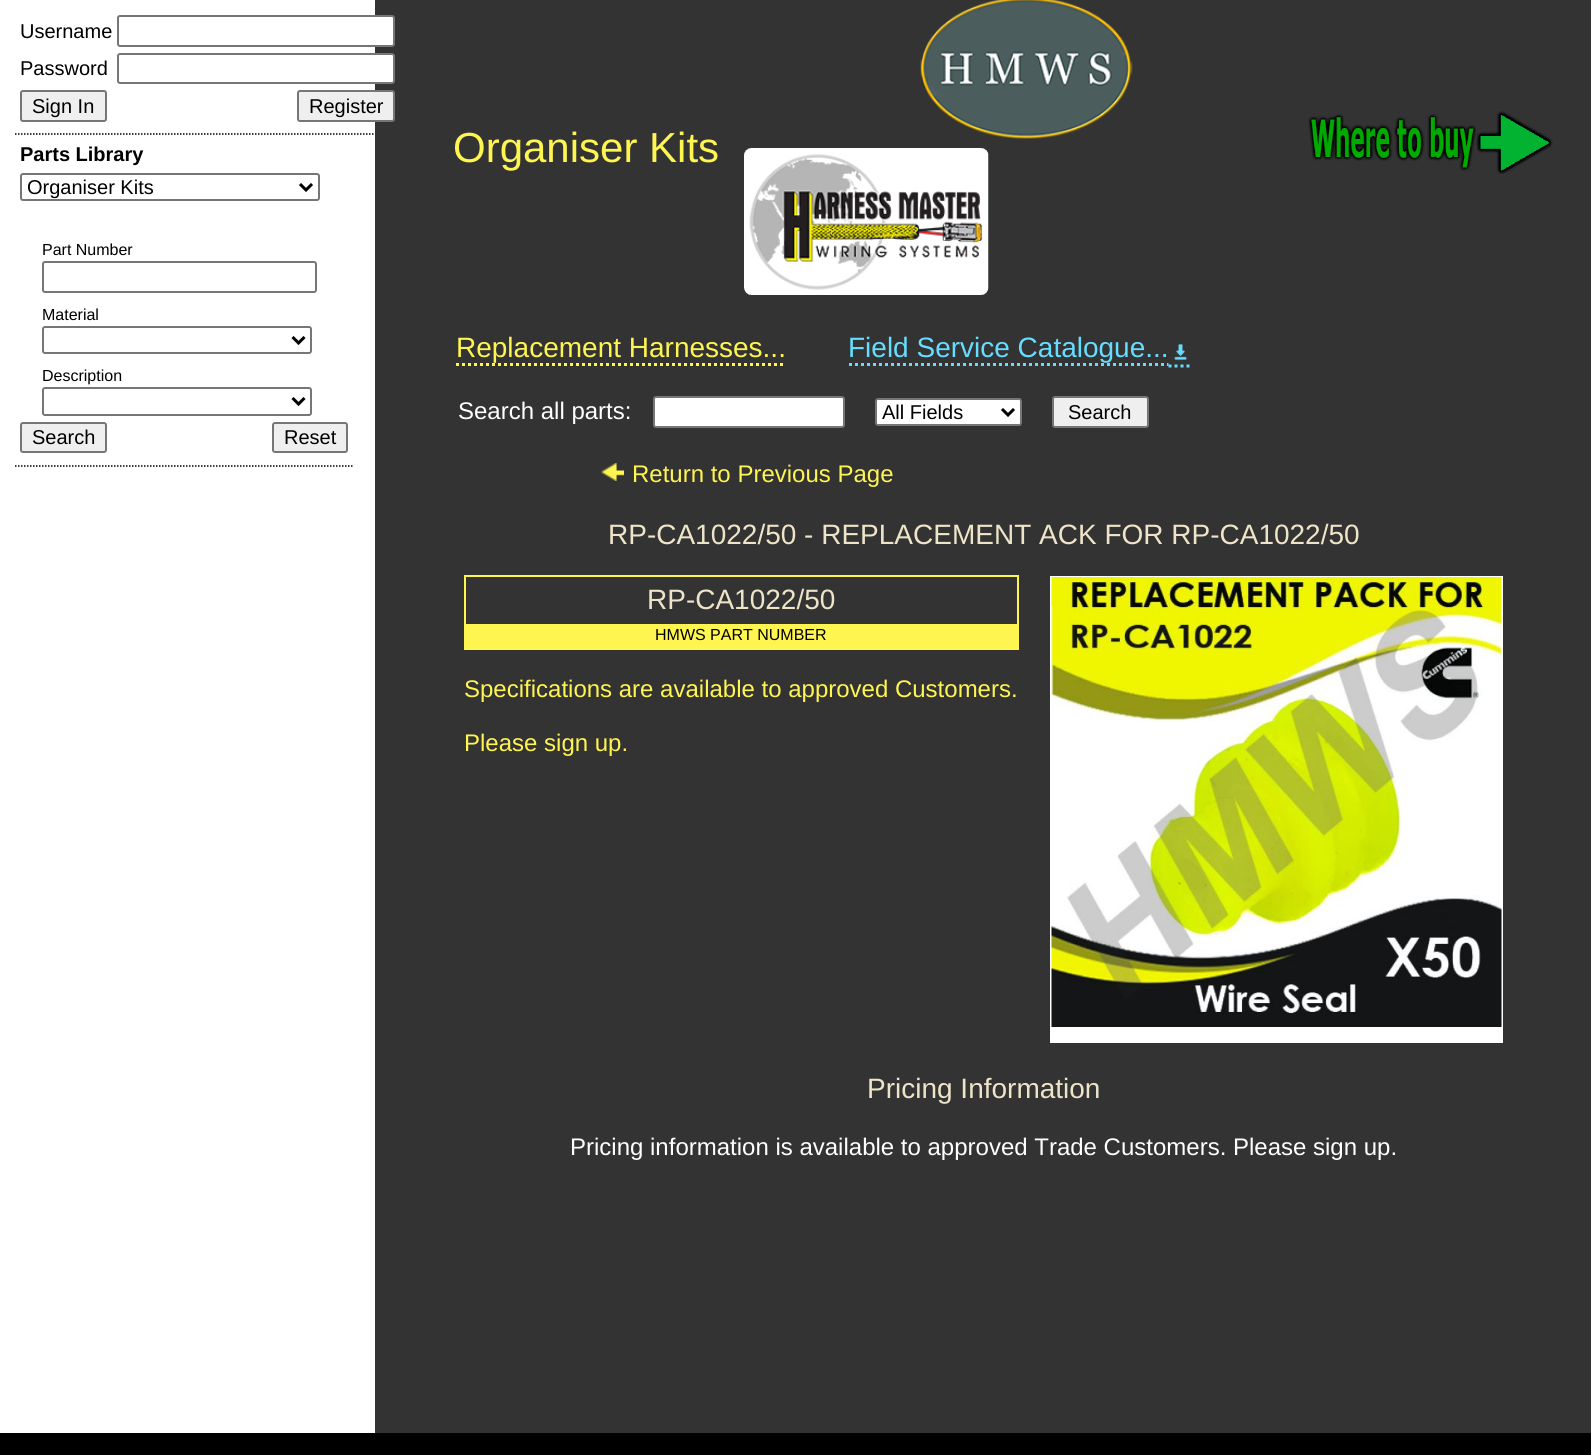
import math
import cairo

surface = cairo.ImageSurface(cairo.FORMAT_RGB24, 1591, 1455)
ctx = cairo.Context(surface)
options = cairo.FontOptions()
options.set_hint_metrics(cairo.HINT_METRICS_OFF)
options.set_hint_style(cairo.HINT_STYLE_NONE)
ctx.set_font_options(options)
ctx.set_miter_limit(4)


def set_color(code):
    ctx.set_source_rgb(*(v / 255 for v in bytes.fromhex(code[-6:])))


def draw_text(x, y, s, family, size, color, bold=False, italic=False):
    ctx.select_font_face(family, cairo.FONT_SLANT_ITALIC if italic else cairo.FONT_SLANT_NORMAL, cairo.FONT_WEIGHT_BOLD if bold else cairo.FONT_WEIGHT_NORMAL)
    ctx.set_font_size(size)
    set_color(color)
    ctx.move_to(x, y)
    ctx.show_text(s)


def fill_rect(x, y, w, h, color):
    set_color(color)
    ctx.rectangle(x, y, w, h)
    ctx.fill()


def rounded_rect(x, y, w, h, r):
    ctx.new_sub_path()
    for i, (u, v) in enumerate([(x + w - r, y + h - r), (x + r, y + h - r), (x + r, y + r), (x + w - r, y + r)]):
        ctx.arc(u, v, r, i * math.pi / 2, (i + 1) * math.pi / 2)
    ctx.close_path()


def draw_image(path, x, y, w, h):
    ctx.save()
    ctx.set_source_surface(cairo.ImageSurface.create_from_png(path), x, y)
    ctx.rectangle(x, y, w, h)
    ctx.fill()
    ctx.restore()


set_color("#000000")
ctx.paint()
fill_rect(0, 0, 375, 1433, "#ffffff")
ctx.new_path()
ctx.move_to(15, 134)
ctx.line_to(399, 134)
set_color("#000000")
ctx.set_line_width(1.5)
ctx.set_dash([1.5, 1.5])
ctx.stroke()
draw_text(20, 38, "Username", "Liberation Sans", 20, "#000000")
fill_rect(375, 0, 1216, 1433, "#333333")
set_color("#ffffff")
rounded_rect(118, 16, 276, 30, 2)
ctx.fill_preserve()
set_color("#767676")
ctx.set_line_width(2)
ctx.set_dash([])
ctx.stroke()
draw_text(20, 75, "Password", "Liberation Sans", 20, "#000000")
set_color("#ffffff")
rounded_rect(118, 54, 276, 29, 2)
ctx.fill_preserve()
set_color("#767676")
ctx.stroke()
set_color("#efefef")
rounded_rect(21, 91, 85, 30, 2)
ctx.fill_preserve()
set_color("#767676")
ctx.stroke()
draw_text(32, 113, "Sign In", "Liberation Sans", 20, "#000000")
set_color("#efefef")
rounded_rect(298, 91, 96, 30, 2)
ctx.fill_preserve()
set_color("#767676")
ctx.stroke()
draw_text(309, 113, "Register", "Liberation Sans", 20, "#000000")
ctx.new_path()
ctx.move_to(15, 466)
ctx.line_to(352.5, 466)
ctx.set_line_width(1.5)
ctx.set_dash([1.5, 1.5])
ctx.stroke()
draw_text(20, 161, "Parts Library", "Liberation Sans", 20, "#000000", bold=True)
rounded_rect(21, 174, 298, 26, 2)
set_color("#767676")
ctx.set_line_width(2)
ctx.set_dash([])
ctx.stroke()
ctx.new_path()
ctx.move_to(300, 184)
ctx.line_to(306, 190)
ctx.line_to(312, 184)
set_color("#000000")
ctx.set_line_width(3)
ctx.stroke()
draw_text(27, 194, "Organiser Kits", "Liberation Sans", 20, "#000000")
draw_text(42, 255, "Part Number", "Liberation Sans", 16, "#000000")
rounded_rect(43, 262, 273, 30, 2)
set_color("#767676")
ctx.set_line_width(2)
ctx.stroke()
draw_text(42, 320, "Material", "Liberation Sans", 16, "#000000")
rounded_rect(43, 327, 268, 26, 2)
set_color("#767676")
ctx.stroke()
ctx.new_path()
ctx.move_to(292.5, 337)
ctx.line_to(298.5, 343)
ctx.line_to(304.5, 337)
set_color("#000000")
ctx.set_line_width(3)
ctx.stroke()
draw_text(42, 381, "Description", "Liberation Sans", 16, "#000000")
rounded_rect(43, 388, 268, 27, 2)
set_color("#767676")
ctx.set_line_width(2)
ctx.stroke()
ctx.new_path()
ctx.move_to(292.5, 398)
ctx.line_to(298.5, 404)
ctx.line_to(304.5, 398)
set_color("#000000")
ctx.set_line_width(3)
ctx.stroke()
set_color("#efefef")
rounded_rect(21, 423, 85, 29, 2)
ctx.fill_preserve()
set_color("#767676")
ctx.set_line_width(2)
ctx.stroke()
draw_text(32, 444, "Search", "Liberation Sans", 20, "#000000")
set_color("#efefef")
rounded_rect(273, 423, 74, 29, 2)
ctx.fill_preserve()
set_color("#767676")
ctx.stroke()
draw_text(284, 444, "Reset", "Liberation Sans", 20, "#000000")
draw_text(453, 162, "Organiser Kits", "Liberation Sans", 42, "#fff551")
draw_image("assets/img1.png", 920, 0, 213, 139)
draw_image("assets/img2.png", 744, 148, 245, 147)
draw_image("assets/img3.png", 1308, 111, 245, 63)
draw_text(456, 357, "Replacement Harnesses...", "Liberation Sans", 28, "#fff551")
ctx.new_path()
ctx.move_to(456, 364.5)
ctx.line_to(786, 364.5)
ctx.set_line_width(3)
ctx.set_dash([3, 3])
ctx.stroke()
draw_text(848, 357, "Field Service Catalogue...", "Liberation Sans", 28, "#66ddff")
ctx.new_path()
ctx.move_to(849, 364.5)
ctx.line_to(1168.5, 364.5)
ctx.stroke()
ctx.new_path()
ctx.move_to(1168.5, 366)
ctx.line_to(1192.5, 366)
ctx.stroke()
draw_image("assets/img4.png", 1174, 343, 13, 18)
draw_text(458, 419, "Search all parts:", "Liberation Sans", 24, "#ffffff")
rounded_rect(654, 397, 190, 30, 2)
ctx.fill_preserve()
set_color("#767676")
ctx.set_line_width(2)
ctx.set_dash([])
ctx.stroke()
set_color("#ffffff")
rounded_rect(876, 399, 145, 26, 2)
ctx.fill_preserve()
set_color("#767676")
ctx.stroke()
ctx.new_path()
ctx.move_to(1002, 409)
ctx.line_to(1008, 415)
ctx.line_to(1014, 409)
set_color("#000000")
ctx.set_line_width(3)
ctx.stroke()
draw_text(882, 419, "All Fields", "Liberation Sans", 20, "#000000")
set_color("#efefef")
rounded_rect(1053, 397, 95, 30, 2)
ctx.fill_preserve()
set_color("#767676")
ctx.set_line_width(2)
ctx.stroke()
draw_text(1068, 419, "Search", "Liberation Sans", 20, "#000000")
draw_image("assets/img5.png", 601, 463, 23, 18)
draw_text(632, 482, "Return to Previous Page", "Liberation Sans", 24, "#fff551")
draw_text(608, 544, "RP-CA1022/50 - REPLACEMENT ACK FOR RP-CA1022/50", "Liberation Sans", 28, "#eee5c9")
ctx.rectangle(465, 576, 553, 73)
set_color("#fff551")
ctx.stroke()
draw_text(647, 609, "RP-CA1022/50", "Liberation Sans", 28, "#eee5c9")
fill_rect(466, 624, 551, 21, "#fff551")
draw_text(655, 640, "HMWS PART NUMBER", "Liberation Sans", 16, "#000000")
fill_rect(465, 645, 552, 3, "#fff551")
draw_text(464, 697, "Specifications are available to approved Customers.", "Liberation Sans", 24, "#fff551")
draw_text(464, 751, "Please sign up.", "Liberation Sans", 24, "#fff551")
fill_rect(1050, 576, 453, 467, "#ffffff")
draw_image("assets/img6.png", 1051, 577, 451, 450)
draw_text(867, 1098, "Pricing Information", "Liberation Sans", 28, "#eee5c9")
draw_text(570, 1155, "Pricing information is available to approved Trade Customers. Please sign up.", "Liberation Sans", 24, "#ffffff")
surface.write_to_png("output.png")
